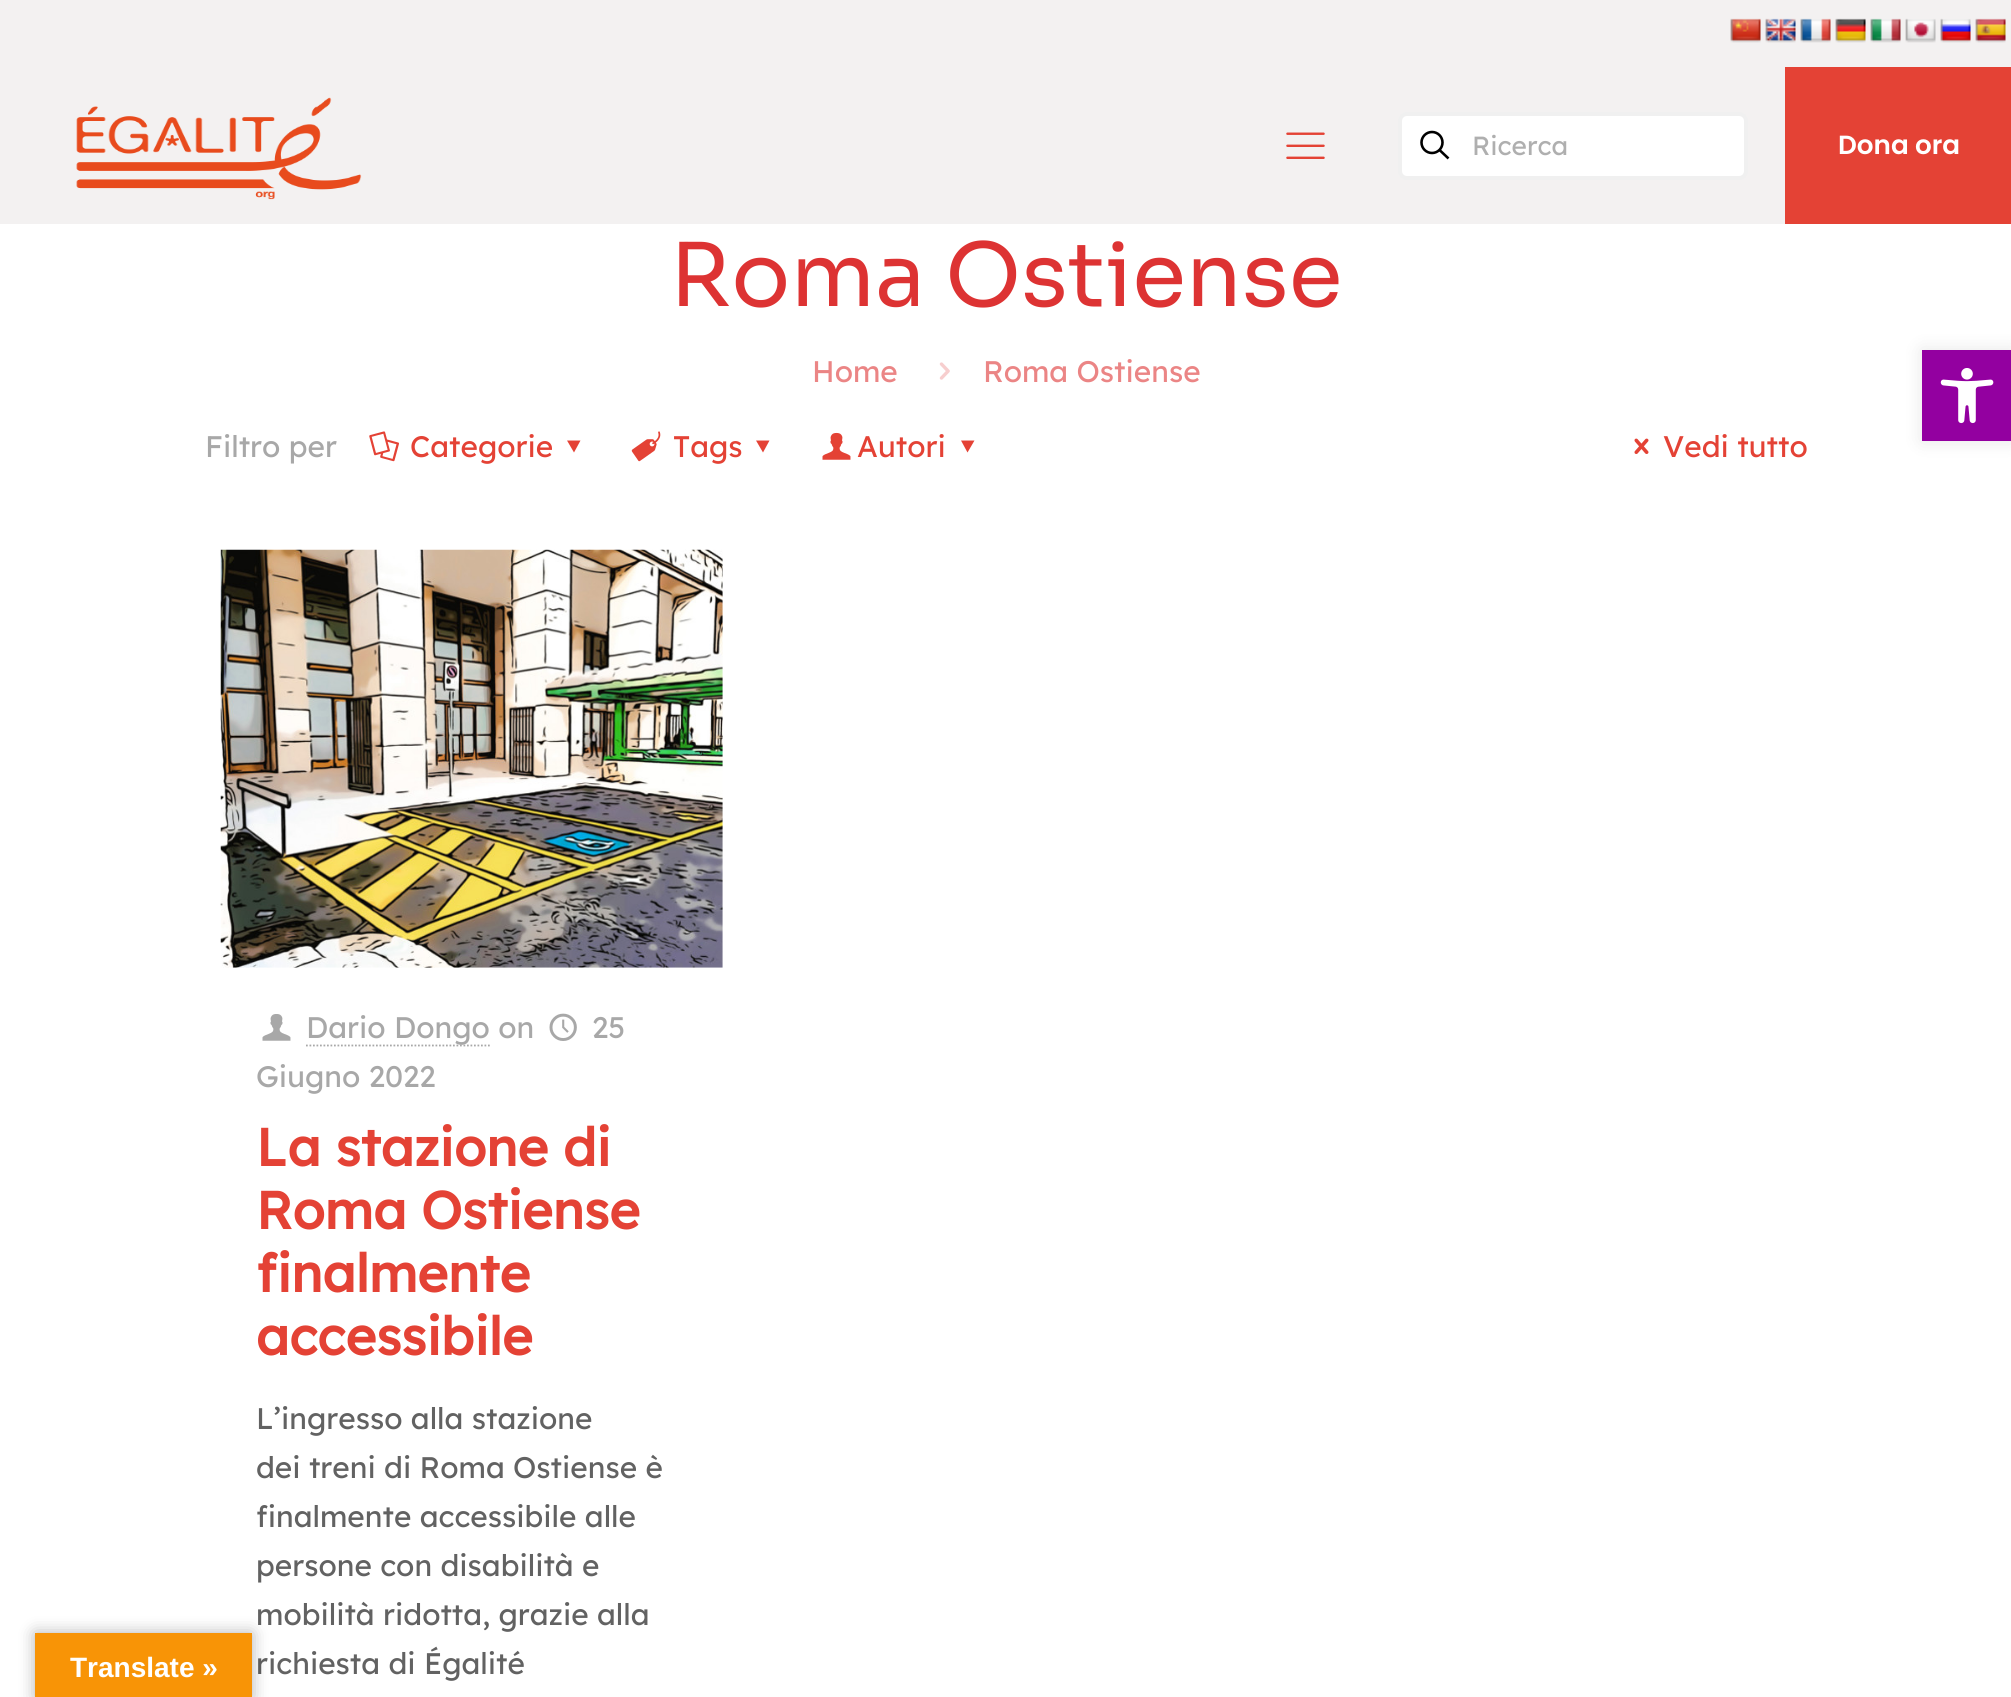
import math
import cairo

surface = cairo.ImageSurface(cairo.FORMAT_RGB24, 2011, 1697)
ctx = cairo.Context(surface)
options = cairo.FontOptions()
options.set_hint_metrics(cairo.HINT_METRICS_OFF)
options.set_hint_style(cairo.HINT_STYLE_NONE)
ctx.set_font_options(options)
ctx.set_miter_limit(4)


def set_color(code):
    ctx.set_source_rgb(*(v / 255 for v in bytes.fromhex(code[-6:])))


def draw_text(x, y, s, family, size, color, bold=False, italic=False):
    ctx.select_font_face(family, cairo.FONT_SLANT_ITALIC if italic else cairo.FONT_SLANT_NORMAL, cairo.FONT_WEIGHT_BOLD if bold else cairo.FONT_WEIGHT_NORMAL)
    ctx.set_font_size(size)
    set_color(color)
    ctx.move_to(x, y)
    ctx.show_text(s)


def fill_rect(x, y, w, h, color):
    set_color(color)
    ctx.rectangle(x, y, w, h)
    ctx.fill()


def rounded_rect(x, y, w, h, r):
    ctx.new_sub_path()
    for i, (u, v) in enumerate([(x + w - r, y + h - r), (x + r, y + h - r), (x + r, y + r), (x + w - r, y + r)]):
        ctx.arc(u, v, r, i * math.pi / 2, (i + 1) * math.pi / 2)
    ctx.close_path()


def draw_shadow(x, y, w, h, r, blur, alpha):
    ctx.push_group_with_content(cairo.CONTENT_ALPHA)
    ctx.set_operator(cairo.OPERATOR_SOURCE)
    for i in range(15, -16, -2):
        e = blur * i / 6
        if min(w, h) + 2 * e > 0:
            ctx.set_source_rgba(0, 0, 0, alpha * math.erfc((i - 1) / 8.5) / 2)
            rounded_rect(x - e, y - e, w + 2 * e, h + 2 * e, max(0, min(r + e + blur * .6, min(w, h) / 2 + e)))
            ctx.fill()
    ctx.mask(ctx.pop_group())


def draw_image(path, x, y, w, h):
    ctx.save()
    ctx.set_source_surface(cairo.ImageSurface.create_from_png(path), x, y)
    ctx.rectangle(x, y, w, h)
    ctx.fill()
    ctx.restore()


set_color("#f3f1f1")
ctx.paint()
draw_image("assets/img1.png", 1730, 18, 31, 25)
draw_image("assets/img2.png", 1765, 18, 31, 25)
draw_image("assets/img3.png", 1800, 18, 31, 25)
draw_image("assets/img4.png", 1835, 18, 31, 25)
draw_image("assets/img5.png", 1870, 18, 31, 25)
draw_image("assets/img6.png", 1905, 18, 31, 25)
draw_image("assets/img7.png", 1940, 18, 31, 25)
draw_image("assets/img8.png", 1975, 18, 31, 25)
fill_rect(0, 224, 2011, 1473, "#ffffff")
draw_image("assets/img9.png", 76, 97, 286, 103)
draw_image("assets/img10.png", 1286, 132, 39, 27)
rounded_rect(1400, 114, 346, 64, 7)
ctx.fill_preserve()
set_color("#f0f0f0")
ctx.set_line_width(4)
ctx.stroke()
ctx.arc(1432, 142.5, 10.5, 0, 2 * math.pi)
set_color("#000000")
ctx.set_line_width(2.6)
ctx.stroke()
ctx.new_path()
ctx.move_to(1439.5, 150)
ctx.line_to(1448.5, 158.5)
ctx.stroke()
draw_text(1472, 155, "Ricerca", "Lexend", 26.25, "#afafaf")
fill_rect(1785, 67, 226, 157, "#e44235")
draw_text(1838, 154, "Dona ora", "Poppins SemiBold", 26.25, "#ffffff")
draw_text(670, 306, "Roma Ostiense", "Sora", 87.5, "#dd3333")
draw_text(812, 382, "Home", "Lexend", 29.75, "#eb8585")
draw_image("assets/img11.png", 939, 362, 11, 18)
draw_text(983, 382, "Roma Ostiense", "Lexend", 29.75, "#eb8585")
draw_text(205, 457, "Filtro per", "Lexend", 29.75, "#a8a8a8")
draw_image("assets/img12.png", 369, 431, 30, 31)
draw_text(410, 457, "Categorie", "Lexend", 29.75, "#e44235")
ctx.new_path()
ctx.move_to(580.5, 440.5)
ctx.line_to(574, 452.5)
ctx.line_to(567, 440.5)
ctx.close_path()
ctx.fill()
draw_image("assets/img13.png", 631, 431, 30, 31)
draw_text(673, 457, "Tags", "Lexend", 29.75, "#e44235")
ctx.new_path()
ctx.move_to(769.5, 440.5)
ctx.line_to(763, 452.5)
ctx.line_to(756, 440.5)
ctx.close_path()
ctx.fill()
draw_image("assets/img14.png", 822, 432, 29, 28)
draw_text(857, 457, "Autori", "Lexend", 29.75, "#e44235")
ctx.new_path()
ctx.move_to(974.5, 440.5)
ctx.line_to(967.5, 452.5)
ctx.line_to(961, 440.5)
ctx.close_path()
ctx.fill()
draw_image("assets/img15.png", 1634, 438, 15, 16)
draw_text(1663, 457, "Vedi tutto", "Lexend", 29.75, "#e44235")
draw_image("assets/img16.png", 220, 549, 503, 419)
draw_image("assets/img17.png", 262, 1014, 29, 27)
ctx.new_path()
ctx.move_to(306, 1045.5)
ctx.line_to(490, 1045.5)
set_color("#a8a8a8")
ctx.set_line_width(1.8)
ctx.set_dash([1.75, 1.75])
ctx.stroke()
draw_text(306, 1038, "Dario Dongo on", "Lexend", 29.75, "#a8a8a8")
draw_image("assets/img18.png", 549, 1013, 28, 28)
draw_text(592, 1038, "25", "Lexend", 29.75, "#a8a8a8")
draw_text(256, 1087, "Giugno 2022", "Lexend", 29.75, "#a8a8a8")
draw_text(256, 1166, "La stazione di", "Lexend", 52.5, "#e44235", bold=True)
draw_text(256, 1229, "Roma Ostiense", "Lexend", 52.5, "#e44235", bold=True)
draw_text(256, 1292, "finalmente", "Lexend", 52.5, "#e44235", bold=True)
draw_text(256, 1355, "accessibile", "Lexend", 52.5, "#e44235", bold=True)
draw_text(256, 1429, "L’ingresso alla stazione", "Lexend", 29.75, "#626262")
draw_text(256, 1478, "dei treni di Roma Ostiense è", "Lexend", 29.75, "#626262")
draw_text(256, 1527, "finalmente accessibile alle", "Lexend", 29.75, "#626262")
draw_text(256, 1576, "persone con disabilità e", "Lexend", 29.75, "#626262")
draw_text(256, 1625, "mobilità ridotta, grazie alla", "Lexend", 29.75, "#626262")
draw_text(256, 1674, "richiesta di Égalité", "Lexend", 29.75, "#626262")
set_color("#000000")
draw_shadow(1922, 350, 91, 91, 0, 9, 0.1)
fill_rect(1922, 350, 89, 91, "#9300a0")
draw_image("assets/img19.png", 1940, 368, 54, 56)
set_color("#000000")
draw_shadow(35, 1633, 217, 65, 0, 8, 0.3)
fill_rect(35, 1633, 217, 64, "#f89406")
draw_text(70, 1677, "Translate »", "Liberation Sans", 28, "#ffffff", bold=True)
surface.write_to_png("output.png")
